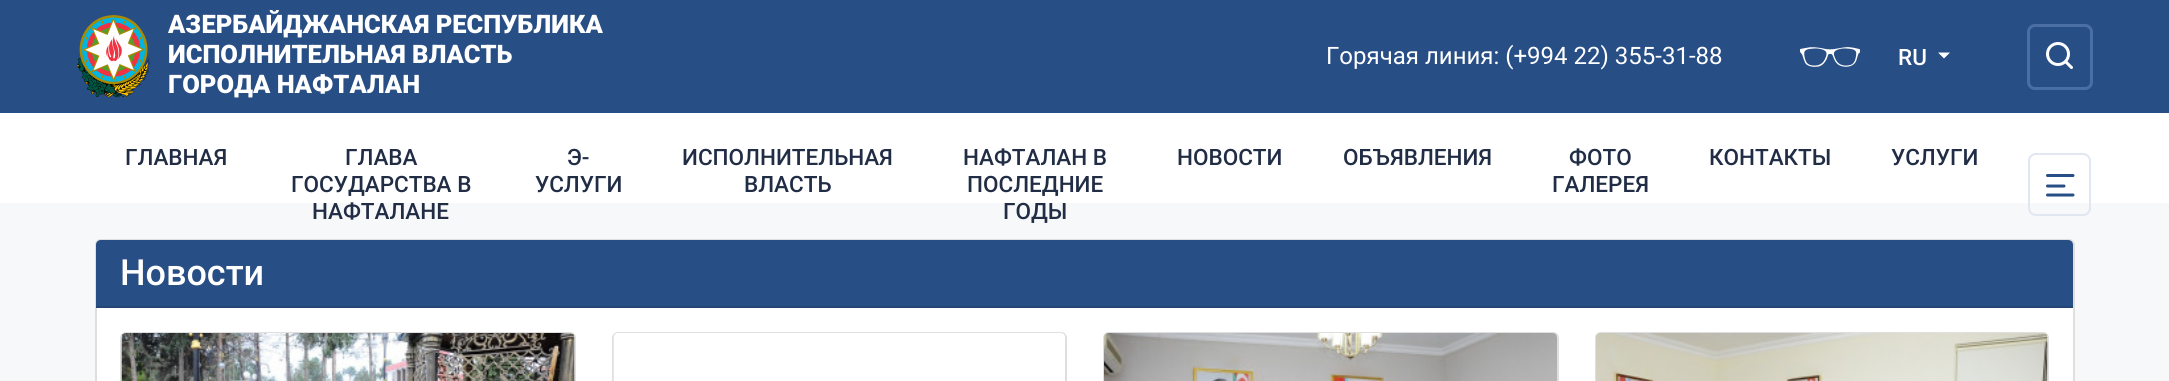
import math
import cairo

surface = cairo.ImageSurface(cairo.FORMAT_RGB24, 2169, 381)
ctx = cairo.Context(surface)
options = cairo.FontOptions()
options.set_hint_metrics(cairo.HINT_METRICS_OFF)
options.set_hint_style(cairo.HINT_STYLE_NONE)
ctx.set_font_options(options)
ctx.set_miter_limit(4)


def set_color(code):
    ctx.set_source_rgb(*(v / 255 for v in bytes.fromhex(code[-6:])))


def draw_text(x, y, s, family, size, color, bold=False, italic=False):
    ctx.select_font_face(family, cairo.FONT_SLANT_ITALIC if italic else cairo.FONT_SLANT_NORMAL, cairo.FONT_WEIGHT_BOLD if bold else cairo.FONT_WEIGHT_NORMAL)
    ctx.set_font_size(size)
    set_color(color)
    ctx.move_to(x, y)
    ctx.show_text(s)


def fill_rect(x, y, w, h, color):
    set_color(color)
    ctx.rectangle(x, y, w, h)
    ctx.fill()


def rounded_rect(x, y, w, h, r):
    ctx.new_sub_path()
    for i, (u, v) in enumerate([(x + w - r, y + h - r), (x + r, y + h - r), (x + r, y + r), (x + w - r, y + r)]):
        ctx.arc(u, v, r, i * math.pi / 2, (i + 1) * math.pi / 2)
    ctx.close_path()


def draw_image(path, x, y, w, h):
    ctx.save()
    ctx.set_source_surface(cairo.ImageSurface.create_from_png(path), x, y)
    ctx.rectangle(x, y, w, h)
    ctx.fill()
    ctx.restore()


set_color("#f7f8f9")
ctx.paint()
fill_rect(0, 0, 2169, 113, "#284e86")
draw_image("assets/img1.png", 77, 15, 73, 83)
draw_text(168, 33, "АЗЕРБАЙДЖАНСКАЯ РЕСПУБЛИКА", "Roboto Black", 25.5, "#ffffff")
draw_text(168, 63, "ИСПОЛНИТЕЛЬНАЯ ВЛАСТЬ", "Roboto Black", 25.5, "#ffffff")
draw_text(168, 93, "ГОРОДА НАФТАЛАН", "Roboto Black", 25.5, "#ffffff")
draw_text(1326, 64, "Горячая линия: (+994 22) 355-31-88", "Roboto", 24, "#ffffff")
draw_image("assets/img2.png", 1800, 47, 60, 20)
draw_text(1898, 65, "RU", "Roboto Medium", 22.5, "#ffffff")
ctx.new_path()
ctx.move_to(1938, 52.5)
ctx.line_to(1950, 52.5)
ctx.line_to(1944, 58.5)
ctx.close_path()
ctx.fill()
rounded_rect(2028.5, 25.5, 63, 63, 6.5)
set_color("#4a6fa5")
ctx.set_line_width(3)
ctx.stroke()
draw_image("assets/img3.png", 2046, 42, 27, 27)
fill_rect(0, 113, 2169, 90, "#ffffff")
draw_text(125, 165, "ГЛАВНАЯ", "Roboto Medium", 22.5, "#212d45")
draw_text(345, 165, "ГЛАВА", "Roboto Medium", 22.5, "#212d45")
draw_text(291, 192, "ГОСУДАРСТВА В", "Roboto Medium", 22.5, "#212d45")
draw_text(312, 219, "НАФТАЛАНЕ", "Roboto Medium", 22.5, "#212d45")
draw_text(567, 165, "Э-", "Roboto Medium", 22.5, "#212d45")
draw_text(535, 192, "УСЛУГИ", "Roboto Medium", 22.5, "#212d45")
draw_text(682, 165, "ИСПОЛНИТЕЛЬНАЯ", "Roboto Medium", 22.5, "#212d45")
draw_text(744, 192, "ВЛАСТЬ", "Roboto Medium", 22.5, "#212d45")
draw_text(963, 165, "НАФТАЛАН В", "Roboto Medium", 22.5, "#212d45")
draw_text(967, 192, "ПОСЛЕДНИЕ", "Roboto Medium", 22.5, "#212d45")
draw_text(1003, 219, "ГОДЫ", "Roboto Medium", 22.5, "#212d45")
draw_text(1177, 165, "НОВОСТИ", "Roboto Medium", 22.5, "#212d45")
draw_text(1343, 165, "ОБЪЯВЛЕНИЯ", "Roboto Medium", 22.5, "#212d45")
draw_text(1569, 165, "ФОТО", "Roboto Medium", 22.5, "#212d45")
draw_text(1552, 192, "ГАЛЕРЕЯ", "Roboto Medium", 22.5, "#212d45")
draw_text(1709, 165, "КОНТАКТЫ", "Roboto Medium", 22.5, "#212d45")
draw_text(1891, 165, "УСЛУГИ", "Roboto Medium", 22.5, "#212d45")
ctx.new_path()
ctx.move_to(2047.5, 175.5)
ctx.line_to(2073, 175.5)
ctx.move_to(2047.5, 186)
ctx.line_to(2064, 186)
ctx.move_to(2047.5, 195)
ctx.line_to(2073, 195)
set_color("#284e86")
ctx.set_line_cap(cairo.LINE_CAP_ROUND)
ctx.stroke()
rounded_rect(2029, 154, 61, 61, 7)
set_color("#e0e7f1")
ctx.set_line_width(2)
ctx.set_line_cap(cairo.LINE_CAP_BUTT)
ctx.stroke()
set_color("#ffffff")
rounded_rect(96, 240, 1978, 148, 5)
ctx.fill_preserve()
set_color("#dfdfdf")
ctx.stroke()
set_color("#284e86")
ctx.new_path()
ctx.move_to(101, 240)
ctx.line_to(2068, 240)
ctx.curve_to(2071, 240, 2073, 242, 2073, 245)
ctx.line_to(2073, 308)
ctx.line_to(96, 308)
ctx.line_to(96, 245)
ctx.curve_to(96, 242, 98, 240, 101, 240)
ctx.close_path()
ctx.fill()
fill_rect(96, 306, 1977, 2, "#234475")
draw_text(120, 285, "Новости", "Roboto Medium", 36, "#ffffff")
rounded_rect(121, 333, 454, 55, 5)
set_color("#dfdfdf")
ctx.stroke()
draw_image("assets/img4.png", 121, 333, 454, 48)
rounded_rect(613, 333, 453, 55, 5)
ctx.stroke()
draw_image("assets/img5.png", 613, 333, 452, 48)
rounded_rect(1104, 333, 454, 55, 5)
ctx.stroke()
draw_image("assets/img6.png", 1104, 333, 453, 48)
rounded_rect(1596, 333, 452, 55, 5)
ctx.stroke()
draw_image("assets/img7.png", 1596, 333, 452, 48)
surface.write_to_png("output.png")
